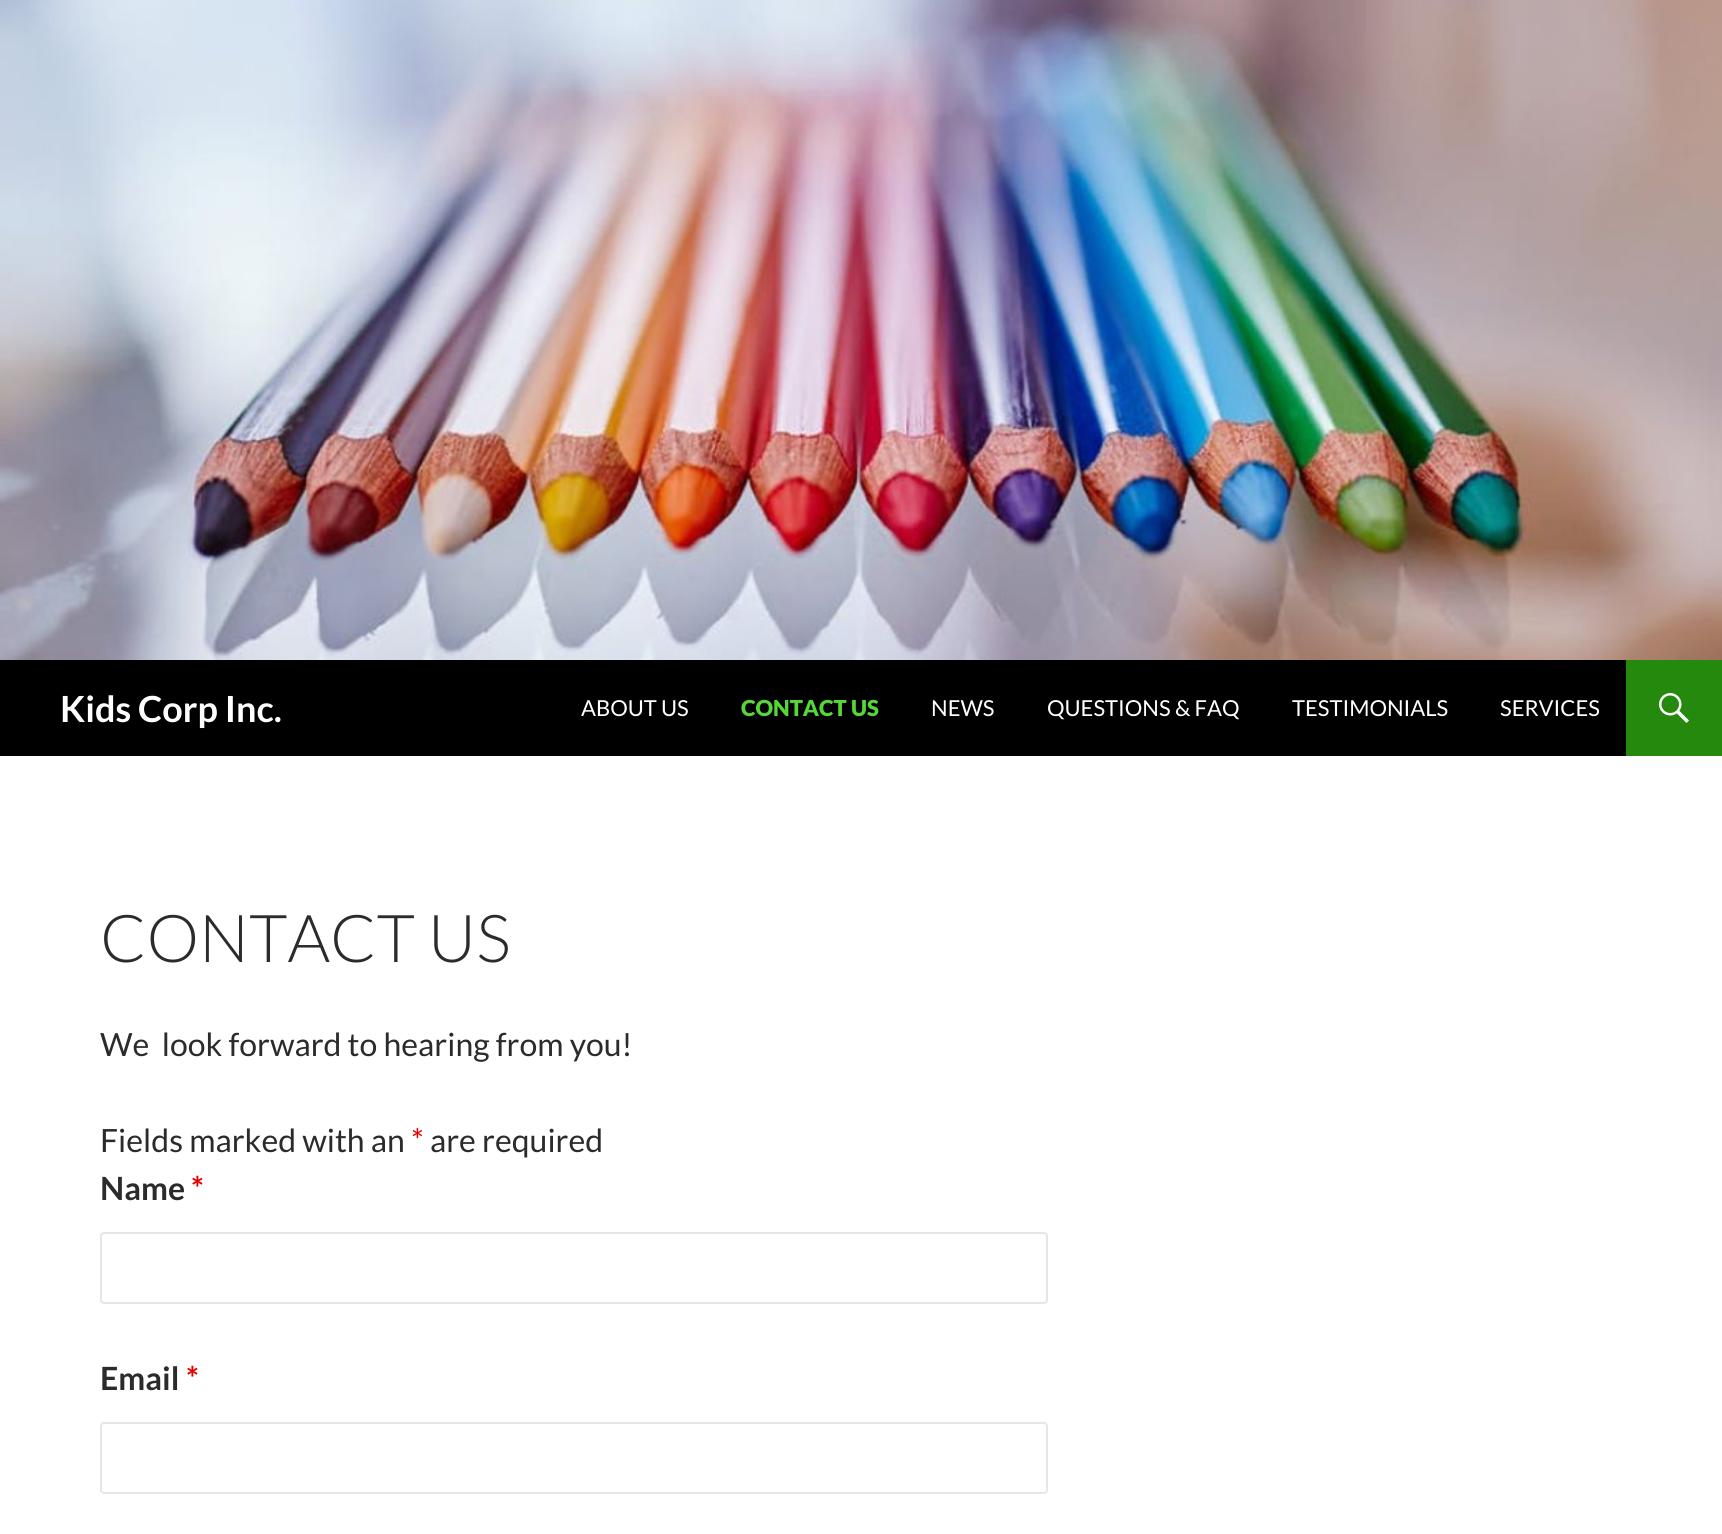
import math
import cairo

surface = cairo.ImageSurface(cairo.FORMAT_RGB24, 1722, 1534)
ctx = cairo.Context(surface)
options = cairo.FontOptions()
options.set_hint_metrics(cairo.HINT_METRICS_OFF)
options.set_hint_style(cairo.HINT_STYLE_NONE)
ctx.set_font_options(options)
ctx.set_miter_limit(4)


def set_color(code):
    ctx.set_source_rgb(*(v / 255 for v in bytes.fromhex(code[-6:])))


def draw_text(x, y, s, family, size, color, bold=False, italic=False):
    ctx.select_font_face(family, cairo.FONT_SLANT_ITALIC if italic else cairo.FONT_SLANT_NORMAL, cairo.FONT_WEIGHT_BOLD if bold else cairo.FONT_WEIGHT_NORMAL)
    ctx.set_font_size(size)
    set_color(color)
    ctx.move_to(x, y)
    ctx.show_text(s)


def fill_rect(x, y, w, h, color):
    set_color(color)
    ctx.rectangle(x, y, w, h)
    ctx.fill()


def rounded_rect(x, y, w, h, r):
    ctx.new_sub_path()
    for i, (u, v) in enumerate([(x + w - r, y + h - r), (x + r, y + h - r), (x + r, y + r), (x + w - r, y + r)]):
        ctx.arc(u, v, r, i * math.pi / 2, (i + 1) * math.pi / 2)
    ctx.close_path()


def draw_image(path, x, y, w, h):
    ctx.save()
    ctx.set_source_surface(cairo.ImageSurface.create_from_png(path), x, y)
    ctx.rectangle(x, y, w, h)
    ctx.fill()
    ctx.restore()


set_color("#ffffff")
ctx.paint()
draw_image("assets/img1.png", 0, 0, 1722, 660)
fill_rect(0, 660, 1626, 96, "#000000")
draw_text(60, 722, "Kids Corp Inc.", "Lato", 36, "#ffffff", bold=True)
draw_text(581, 716, "ABOUT US", "Lato", 22, "#ffffff")
draw_text(741, 716, "CONTACT US", "Lato Black", 22, "#55d737")
draw_text(931, 716, "NEWS", "Lato", 22, "#ffffff")
draw_text(1047, 716, "QUESTIONS & FAQ", "Lato", 22, "#ffffff")
draw_text(1292, 716, "TESTIMONIALS", "Lato", 22, "#ffffff")
draw_text(1500, 716, "SERVICES", "Lato", 22, "#ffffff")
fill_rect(1626, 660, 96, 96, "#24890d")
draw_image("assets/img2.png", 1659, 693, 30, 30)
draw_text(100, 962, "CONTACT US", "Lato Light", 66, "#2b2b2b")
draw_text(100, 1056, "We  look forward to hearing from you!", "Lato", 32, "#2b2b2b")
draw_text(100, 1152, "Fields marked with an", "Lato", 32, "#2b2b2b")
draw_text(411, 1152, "*", "Lato", 32, "#e80000")
draw_text(430, 1152, "are required", "Lato", 32, "#2b2b2b")
draw_text(100, 1200, "Name", "Lato", 32, "#2b2b2b", bold=True)
draw_text(191, 1200, "*", "Lato", 32, "#e80000", bold=True)
rounded_rect(101, 1233, 946, 70, 3)
set_color("#e6e6e6")
ctx.stroke()
draw_text(100, 1390, "Email", "Lato", 32, "#2b2b2b", bold=True)
draw_text(186, 1390, "*", "Lato", 32, "#e80000", bold=True)
rounded_rect(101, 1423, 946, 70, 3)
set_color("#e6e6e6")
ctx.stroke()
surface.write_to_png("output.png")
